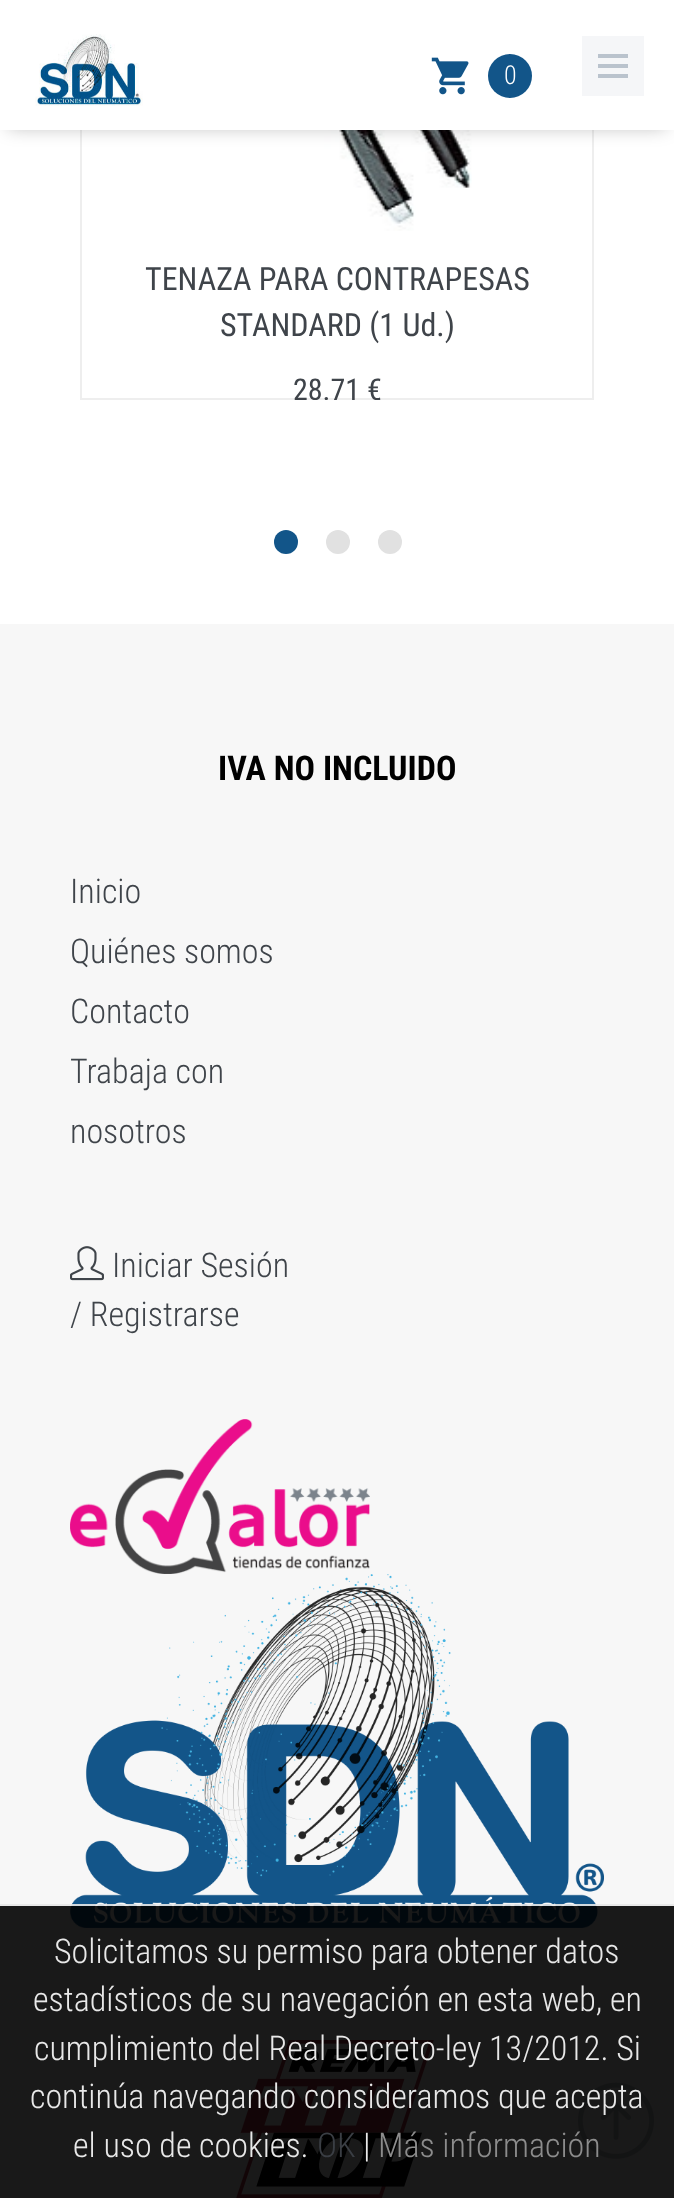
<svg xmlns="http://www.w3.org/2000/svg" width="674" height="2198">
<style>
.a{font:300 26px Roboto Condensed;fill:#fff}
.b{font:32px Roboto Condensed;fill:#3f444a}
.c{font:30px Roboto Condensed;fill:#3f444a}
.d{font:bold 34px Roboto Condensed;fill:#000}
.e{font:300 34px Roboto Condensed;fill:#3f444a}
.f{font:300 34px Roboto Condensed;fill:#e8e8e8}
.g{font:300 34px Roboto Condensed;fill:#3a3e44}
.h{font:300 34px Roboto Condensed;fill:#8c8c8c}
</style>
<defs>
<clipPath id="clip1"><path d="M20 0h634v400H20z"/></clipPath>
</defs>
<rect width="100%" height="100%" fill="#fff"/>
<path fill="none" stroke="#eee" stroke-width="2" d="M81 -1h512v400H81z"/>
<image href="3.png" x="286" y="130" width="186" height="101"/>
<path fill="#00000040" filter="blur(9px)" d="M8 14h658v114H8z"/>
<path fill="#fff" d="M0 0h674v130H0z"/>
<image href="1.png" x="35" y="34" width="108" height="72"/>
<image href="2.png" x="431" y="57" width="38" height="38"/>
<circle fill="#125589" cx="510" cy="76" r="22"/>
<path fill="#f5f6f8" d="M582 36h62v60H582z"/>
<path fill="#bac3cd" d="M598 54h30v4H598z"/>
<path fill="#bac3cd" d="M598 64h30v4H598z"/>
<path fill="#bac3cd" d="M598 74h30v4H598z"/>
<circle fill="#125589" cx="286" cy="542" r="12"/>
<circle fill="#e1e1e1" cx="338" cy="542" r="12"/>
<circle fill="#e1e1e1" cx="390" cy="542" r="12"/>
<path fill="#f7f7f7" d="M0 624h674v1574H0z"/>
<image href="4.png" x="70" y="1246" width="34" height="35"/>
<image href="5.png" x="70" y="1419" width="300" height="155"/>
<image href="6.png" x="70" y="1574" width="534" height="354"/>
<image href="7.png" x="236" y="2040" width="198" height="158"/>
<image href="8.png" x="578" y="2082" width="76" height="77"/>
<path fill="#000000e6" d="M0 1906h674v292H0z"/>
<path fill="#e7e7e7e6" d="M0 1904h674v2H0z"/>
<text class="a" x="504" y="84">0</text>
<text class="b" x="145" y="290">TENAZA PARA CONTRAPESAS</text>
<text class="b" x="220" y="336">STANDARD (1 Ud.)</text>
<g clip-path="url(#clip1)">
<text class="c" x="293" y="400">28.71 €</text>
</g>
<text class="d" x="218" y="780">IVA NO INCLUIDO</text>
<text class="e" x="70" y="903">Inicio</text>
<text class="e" x="70" y="963">Quiénes somos</text>
<text class="e" x="70" y="1023">Contacto</text>
<text class="e" x="70" y="1083">Trabaja con</text>
<text class="e" x="70" y="1143">nosotros</text>
<text class="e" x="112" y="1277">Iniciar Sesión</text>
<text class="e" x="70" y="1326">/ Registrarse</text>
<text class="f" x="54" y="1963">Solicitamos su permiso para obtener datos</text>
<text class="f" x="33" y="2011">estadísticos de su navegación en esta web, en</text>
<text class="f" x="34" y="2060">cumplimiento del Real Decreto-ley 13/2012. Si</text>
<text class="f" x="30" y="2108">continúa navegando consideramos que acepta</text>
<text class="f" x="73" y="2157">el uso de cookies.</text>
<text class="g" x="317" y="2157">OK</text>
<text class="f" x="363" y="2157">|</text>
<text class="h" x="378" y="2157">Más información</text>
</svg>
